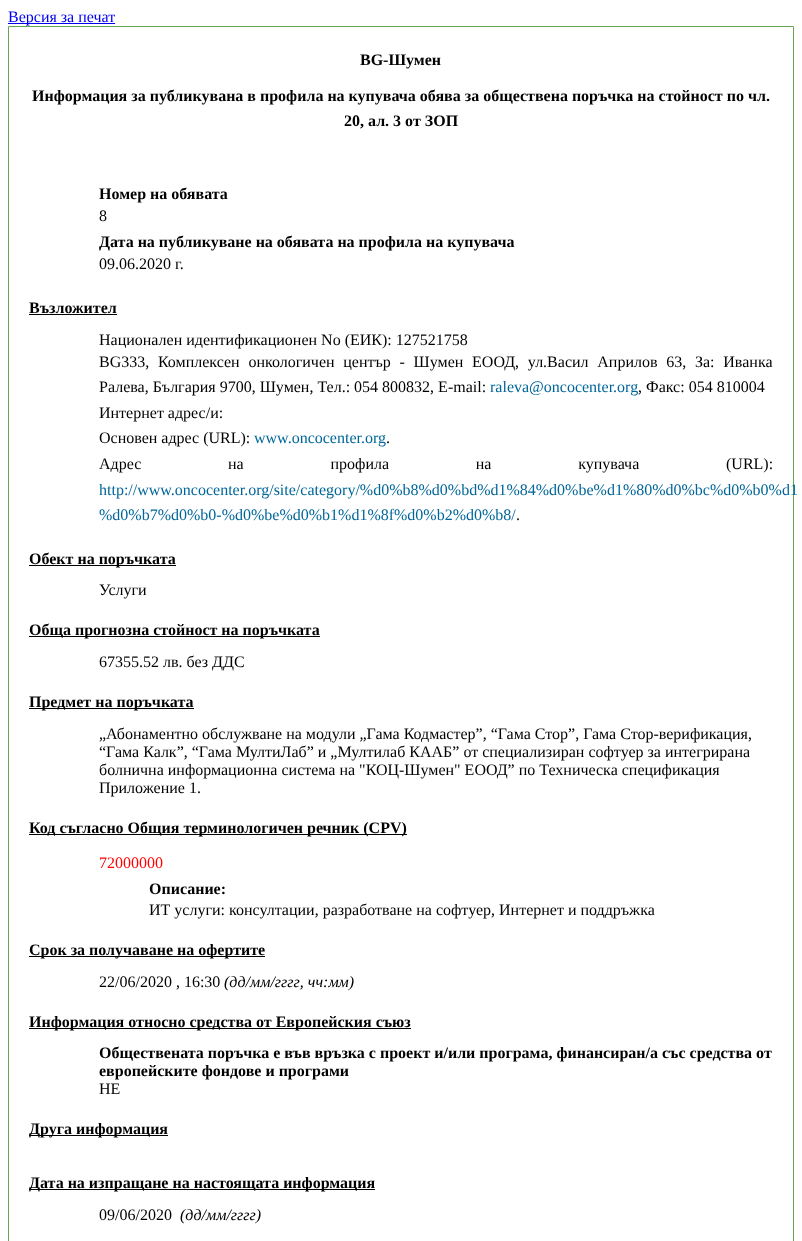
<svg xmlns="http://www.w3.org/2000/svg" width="802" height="1241">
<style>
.a{font:16px Liberation Serif;fill:#00e}
.b{font:bold 16px Liberation Serif;fill:#000}
.c{font:16px Liberation Serif;fill:#000}
.d{font:16px Liberation Serif;fill:#069}
.e{font:16px Liberation Serif;fill:#f00}
.f{font:italic 16px Liberation Serif;fill:#000}
</style>
<rect width="100%" height="100%" fill="#fff"/>
<path fill="#00e" d="M8 23h107v1H8z"/>
<path fill="none" stroke="#67a64f" d="M8.5 26.5h785v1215H8.5z"/>
<path fill="#000" d="M29 314h88v1H29z"/>
<path fill="#000" d="M29 565h147v1H29z"/>
<path fill="#000" d="M29 636h291v1H29z"/>
<path fill="#000" d="M29 708h165v1H29z"/>
<path fill="#000" d="M29 834h378v1H29z"/>
<path fill="#000" d="M29 956h236v1H29z"/>
<path fill="#000" d="M29 1028h382v1H29z"/>
<path fill="#000" d="M29 1135h139v1H29z"/>
<path fill="#000" d="M29 1189h346v1H29z"/>
<text class="a" x="8" y="22">Версия за печат</text>
<text class="b" x="360" y="65">BG-Шумен</text>
<text class="b" x="32" y="101">Информация за публикувана в профила на купувача обява за обществена поръчка на стойност по чл.</text>
<text class="b" x="344" y="126">20, ал. 3 от ЗОП</text>
<text class="b" x="99" y="199">Номер на обявата</text>
<text class="c" x="99" y="221">8</text>
<text class="b" x="99" y="247">Дата на публикуване на обявата на профила на купувача</text>
<text class="c" x="99" y="269">09.06.2020 г.</text>
<text class="b" x="29" y="313">Възложител</text>
<text class="c" x="99" y="345">Национален идентификационен No (ЕИК): 127521758</text>
<text class="c" x="99" y="367" word-spacing="4.75">BG333, Комплексен онкологичен център - Шумен ЕООД, ул.Васил Априлов 63, За: Иванка</text>
<text class="c" x="99" y="392">Ралева, България 9700, Шумен, Тел.: 054 800832, E-mail:</text>
<text class="d" x="490" y="392">raleva@oncocenter.org</text>
<text class="c" x="638" y="392">, Факс: 054 810004</text>
<text class="c" x="99" y="418">Интернет адрес/и:</text>
<text class="c" x="99" y="443">Основен адрес (URL):</text>
<text class="d" x="254" y="443">www.oncocenter.org</text>
<text class="c" x="386" y="443">.</text>
<text class="c" x="99" y="469" word-spacing="82.75">Адрес на профила на купувача (URL):</text>
<text class="d" x="99" y="495">http://www.oncocenter.org/site/category/%d0%b8%d0%bd%d1%84%d0%be%d1%80%d0%bc%d0%b0%d1</text>
<text class="d" x="99" y="520">%d0%b7%d0%b0-%d0%be%d0%b1%d1%8f%d0%b2%d0%b8/</text>
<text class="c" x="516" y="520">.</text>
<text class="b" x="29" y="564">Обект на поръчката</text>
<text class="c" x="99" y="595">Услуги</text>
<text class="b" x="29" y="635">Обща прогнозна стойност на поръчката</text>
<text class="c" x="99" y="667">67355.52 лв. без ДДС</text>
<text class="b" x="29" y="707">Предмет на поръчката</text>
<text class="c" x="99" y="739">„Абонаментно обслужване на модули „Гама Кодмастер”, “Гама Стор”, Гама Стор-верификация,</text>
<text class="c" x="99" y="757">“Гама Калк”, “Гама МултиЛаб” и „Мултилаб КААБ” от специализиран софтуер за интегрирана</text>
<text class="c" x="99" y="775">болнична информационна система на "КОЦ-Шумен" ЕООД” по Техническа спецификация</text>
<text class="c" x="99" y="793">Приложение 1.</text>
<text class="b" x="29" y="833">Код съгласно Общия терминологичен речник (CPV)</text>
<text class="e" x="99" y="868">72000000</text>
<text class="b" x="149" y="894">Описание:</text>
<text class="c" x="149" y="915">ИТ услуги: консултации, разработване на софтуер, Интернет и поддръжка</text>
<text class="b" x="29" y="955">Срок за получаване на офертите</text>
<text class="c" x="99" y="987">22/06/2020 , 16:30</text>
<text class="f" x="224" y="987">(дд/мм/гггг, чч:мм)</text>
<text class="b" x="29" y="1027">Информация относно средства от Европейския съюз</text>
<text class="b" x="99" y="1058">Обществената поръчка е във връзка с проект и/или програма, финансиран/а със средства от</text>
<text class="b" x="99" y="1076">европейските фондове и програми</text>
<text class="c" x="99" y="1094">НЕ</text>
<text class="b" x="29" y="1134">Друга информация</text>
<text class="b" x="29" y="1188">Дата на изпращане на настоящата информация</text>
<text class="c" x="99" y="1220">09/06/2020</text>
<text class="f" x="180" y="1220">(дд/мм/гггг)</text>
</svg>
